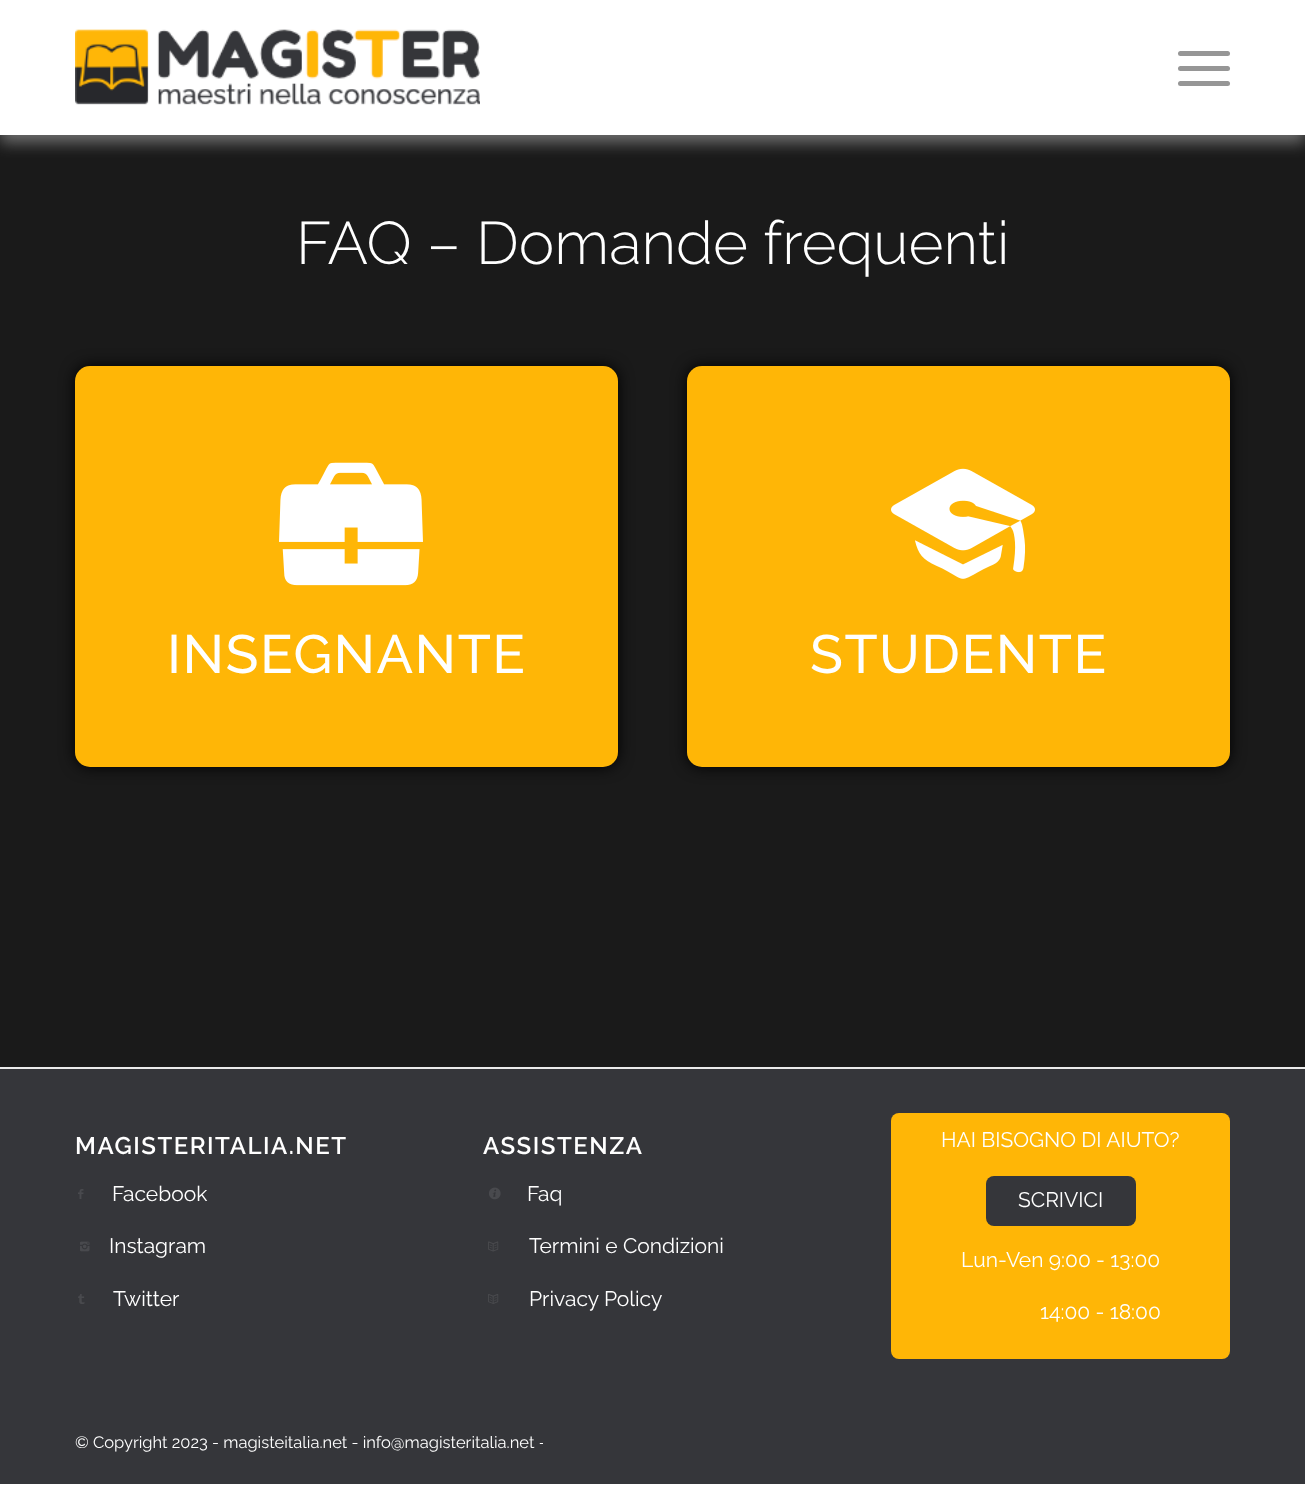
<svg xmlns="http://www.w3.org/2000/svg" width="1305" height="1504">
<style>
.a{font:300 60px Raleway;fill:#fff}
.b{font:500 54px Raleway;letter-spacing:1.5px;fill:#fff}
.c{font:600 24px Raleway;letter-spacing:1.5px;fill:#fff}
.d{font:21px Raleway;fill:#fff}
.e{font:16.5px Raleway;fill:#fff}
</style>
<defs>
<clipPath id="clip1"><path d="M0 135h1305v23H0z"/></clipPath>
</defs>
<rect width="100%" height="100%" fill="#fff"/>
<path fill="#1a1a1a" d="M0 135h1305v932H0z"/>
<g clip-path="url(#clip1)">
<path fill="#6d6d6d" filter="blur(7.5px)" d="M0 8h1305v135H0z"/>
</g>
<image href="1.png" x="75" y="29" width="405" height="76"/>
<rect fill="#969696" x="1178" y="66" width="52" height="5" rx="2.5"/>
<rect fill="#969696" x="1178" y="51" width="52" height="5" rx="2.5"/>
<rect fill="#969696" x="1178" y="81" width="52" height="5" rx="2.5"/>
<rect fill="#000" filter="blur(7.5px)" x="75" y="366" width="543" height="401" rx="15"/>
<rect fill="#ffb606" x="75" y="366" width="543" height="401" rx="15"/>
<image href="2.png" x="279" y="462" width="144" height="124"/>
<rect fill="#000" filter="blur(7.5px)" x="687" y="366" width="543" height="401" rx="15"/>
<rect fill="#ffb606" x="687" y="366" width="543" height="401" rx="15"/>
<image href="3.png" x="891" y="468" width="144" height="111"/>
<path fill="#35363a" d="M0 1069h1305v415H0z"/>
<path fill="#ebebeb" d="M0 1067h1305v2H0z"/>
<image href="4.png" x="78" y="1189" width="6" height="10"/>
<image href="5.png" x="80" y="1241" width="10" height="11"/>
<image href="6.png" x="78" y="1294" width="7" height="10"/>
<image href="7.png" x="489" y="1187" width="12" height="13"/>
<image href="8.png" x="488" y="1241" width="11" height="11"/>
<image href="9.png" x="488" y="1294" width="11" height="10"/>
<rect fill="#ffb606" x="891" y="1113" width="339" height="246" rx="8"/>
<rect fill="#35363a" x="986" y="1176" width="150" height="50" rx="8"/>
<text class="a" x="296" y="264">FAQ – Domande frequenti</text>
<text class="b" x="167" y="673">INSEGNANTE</text>
<text class="b" x="810" y="673">STUDENTE</text>
<text class="c" x="75" y="1154">MAGISTERITALIA.NET</text>
<text class="d" x="112" y="1201">Facebook</text>
<text class="d" x="109" y="1253">Instagram</text>
<text class="d" x="113" y="1306">Twitter</text>
<text class="c" x="483" y="1154">ASSISTENZA</text>
<text class="d" x="527" y="1201">Faq</text>
<text class="d" x="529" y="1253">Termini e Condizioni</text>
<text class="d" x="529" y="1306">Privacy Policy</text>
<text class="d" x="941" y="1147">HAI BISOGNO DI AIUTO?</text>
<text class="d" x="1018" y="1207">SCRIVICI</text>
<text class="d" x="961" y="1267">Lun-Ven 9:00 - 13:00</text>
<text class="d" x="1040" y="1319">14:00 - 18:00</text>
<text class="e" x="75" y="1448">© Copyright 2023 - magisteitalia.net - info@magisteritalia.net -</text>
<path fill="#35363a" d="M543 1443h2v1H543z"/>
</svg>
